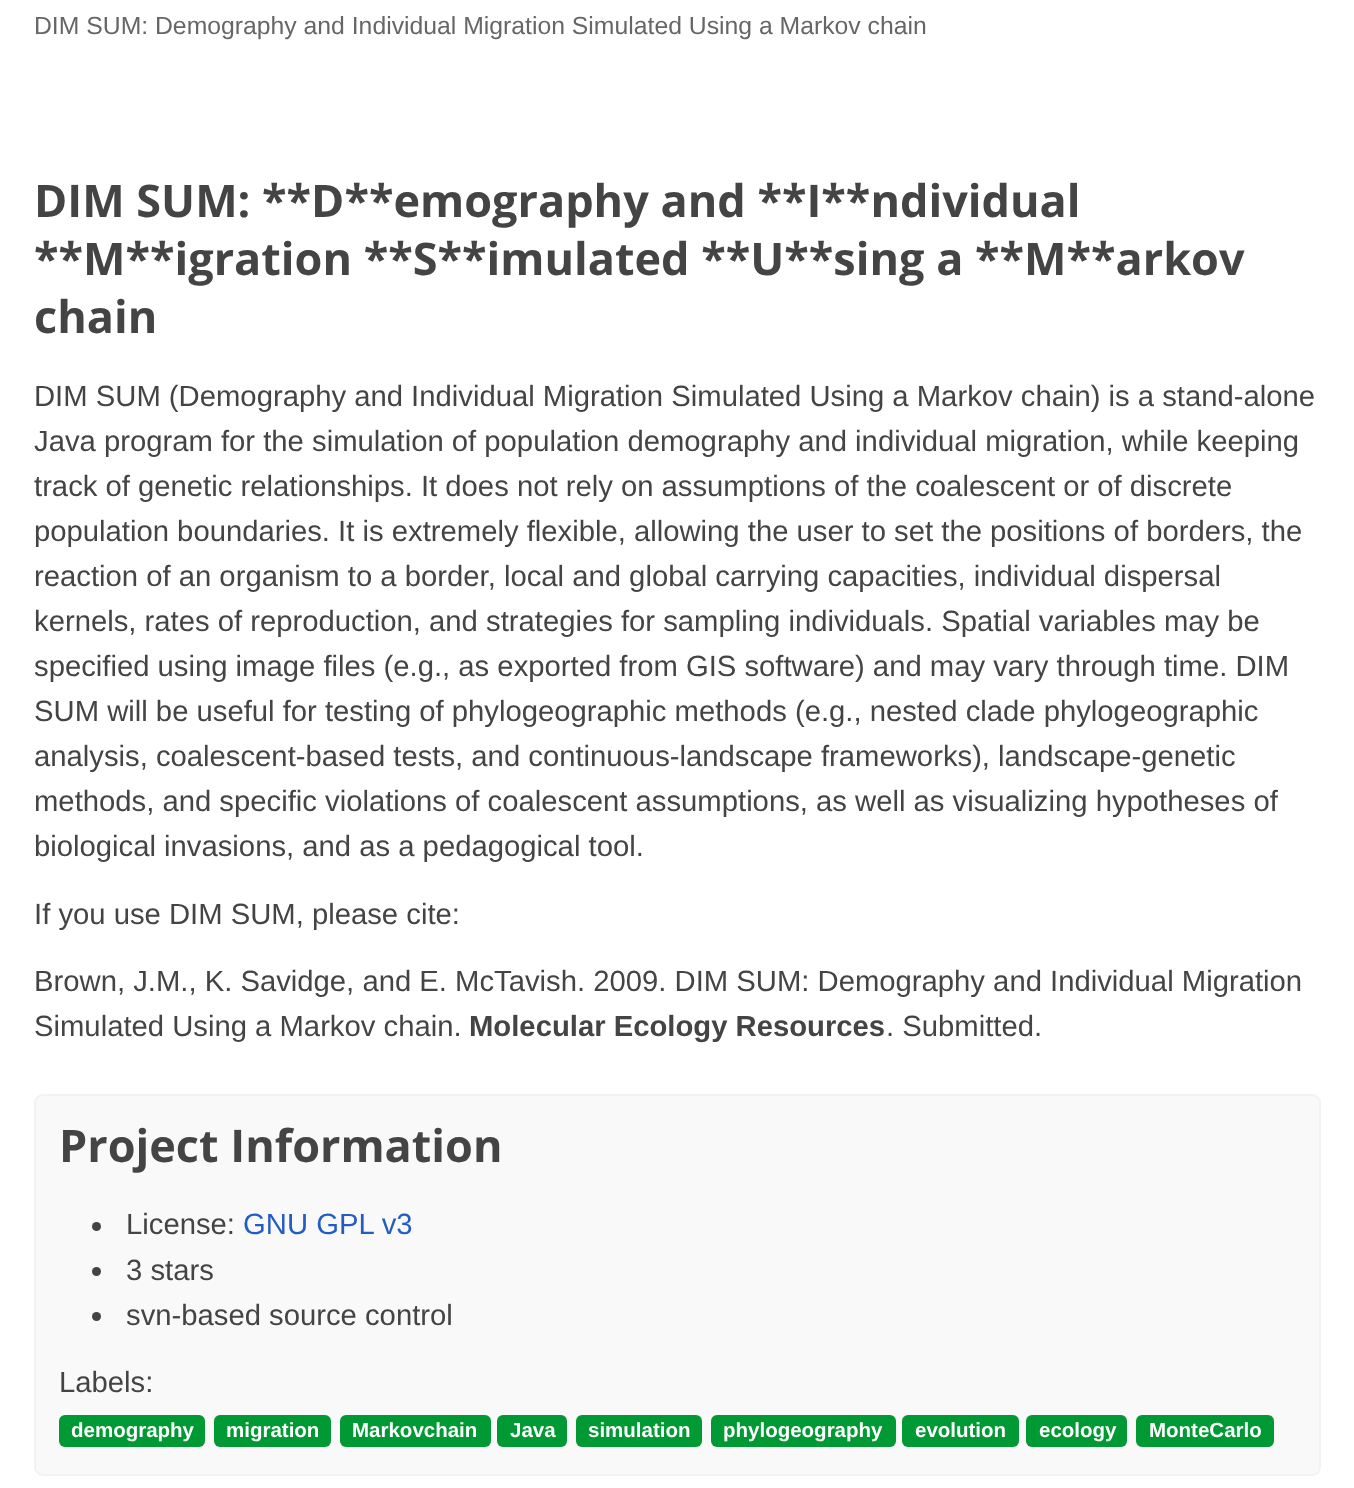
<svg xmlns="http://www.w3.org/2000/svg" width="1354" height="1488">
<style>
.a{font:24.75px Liberation Sans;fill:#666}
.b{font:bold 45px Open Sans;fill:#444}
.c{font:29.25px Liberation Sans;fill:#444}
.d{font:bold 29.25px Liberation Sans;fill:#444}
.e{font:29.25px Liberation Sans;fill:#245dc1}
.f{font:bold 20.5px Liberation Sans;fill:#fff}
</style>
<rect width="100%" height="100%" fill="#fff"/>
<rect fill="#f9f9f9" stroke="#f2f2f2" stroke-width="2" x="35" y="1095" width="1285" height="380" rx="8"/>
<circle fill="#444" cx="96.5" cy="1226.5" r="4.5"/>
<circle fill="#444" cx="96.5" cy="1271.5" r="4.5"/>
<circle fill="#444" cx="96.5" cy="1316.5" r="4.5"/>
<rect fill="#093" x="59" y="1415" width="146" height="32" rx="6"/>
<rect fill="#093" x="214" y="1415" width="117" height="32" rx="6"/>
<rect fill="#093" x="340" y="1415" width="151" height="32" rx="6"/>
<rect fill="#093" x="497" y="1415" width="70" height="32" rx="6"/>
<rect fill="#093" x="576" y="1415" width="126" height="32" rx="6"/>
<rect fill="#093" x="711" y="1415" width="185" height="32" rx="6"/>
<rect fill="#093" x="902" y="1415" width="117" height="32" rx="6"/>
<rect fill="#093" x="1026" y="1415" width="101" height="32" rx="6"/>
<rect fill="#093" x="1136" y="1415" width="138" height="32" rx="6"/>
<text class="a" x="34" y="34">DIM SUM: Demography and Individual Migration Simulated Using a Markov chain</text>
<text class="b" x="34" y="217">DIM SUM: **D**emography and **I**ndividual</text>
<text class="b" x="34" y="275">**M**igration **S**imulated **U**sing a **M**arkov</text>
<text class="b" x="34" y="333">chain</text>
<text class="c" x="34" y="406">DIM SUM (Demography and Individual Migration Simulated Using a Markov chain) is a stand-alone</text>
<text class="c" x="34" y="451">Java program for the simulation of population demography and individual migration, while keeping</text>
<text class="c" x="34" y="496">track of genetic relationships. It does not rely on assumptions of the coalescent or of discrete</text>
<text class="c" x="34" y="541">population boundaries. It is extremely flexible, allowing the user to set the positions of borders, the</text>
<text class="c" x="34" y="586">reaction of an organism to a border, local and global carrying capacities, individual dispersal</text>
<text class="c" x="34" y="631">kernels, rates of reproduction, and strategies for sampling individuals. Spatial variables may be</text>
<text class="c" x="34" y="676">specified using image files (e.g., as exported from GIS software) and may vary through time. DIM</text>
<text class="c" x="34" y="721">SUM will be useful for testing of phylogeographic methods (e.g., nested clade phylogeographic</text>
<text class="c" x="34" y="766">analysis, coalescent-based tests, and continuous-landscape frameworks), landscape-genetic</text>
<text class="c" x="34" y="811">methods, and specific violations of coalescent assumptions, as well as visualizing hypotheses of</text>
<text class="c" x="34" y="856">biological invasions, and as a pedagogical tool.</text>
<text class="c" x="34" y="924">If you use DIM SUM, please cite:</text>
<text class="c" x="34" y="991">Brown, J.M., K. Savidge, and E. McTavish. 2009. DIM SUM: Demography and Individual Migration</text>
<text class="c" x="34" y="1036">Simulated Using a Markov chain.</text>
<text class="d" x="469" y="1036">Molecular Ecology Resources</text>
<text class="c" x="886" y="1036">. Submitted.</text>
<text class="b" x="59" y="1162">Project Information</text>
<text class="c" x="126" y="1234">License:</text>
<text class="e" x="243" y="1234">GNU GPL v3</text>
<text class="c" x="126" y="1280">3 stars</text>
<text class="c" x="126" y="1325">svn-based source control</text>
<text class="c" x="59" y="1392">Labels:</text>
<text class="f" x="71" y="1437">demography</text>
<text class="f" x="226" y="1437">migration</text>
<text class="f" x="352" y="1437">Markovchain</text>
<text class="f" x="510" y="1437">Java</text>
<text class="f" x="588" y="1437">simulation</text>
<text class="f" x="723" y="1437">phylogeography</text>
<text class="f" x="915" y="1437">evolution</text>
<text class="f" x="1039" y="1437">ecology</text>
<text class="f" x="1149" y="1437">MonteCarlo</text>
</svg>
